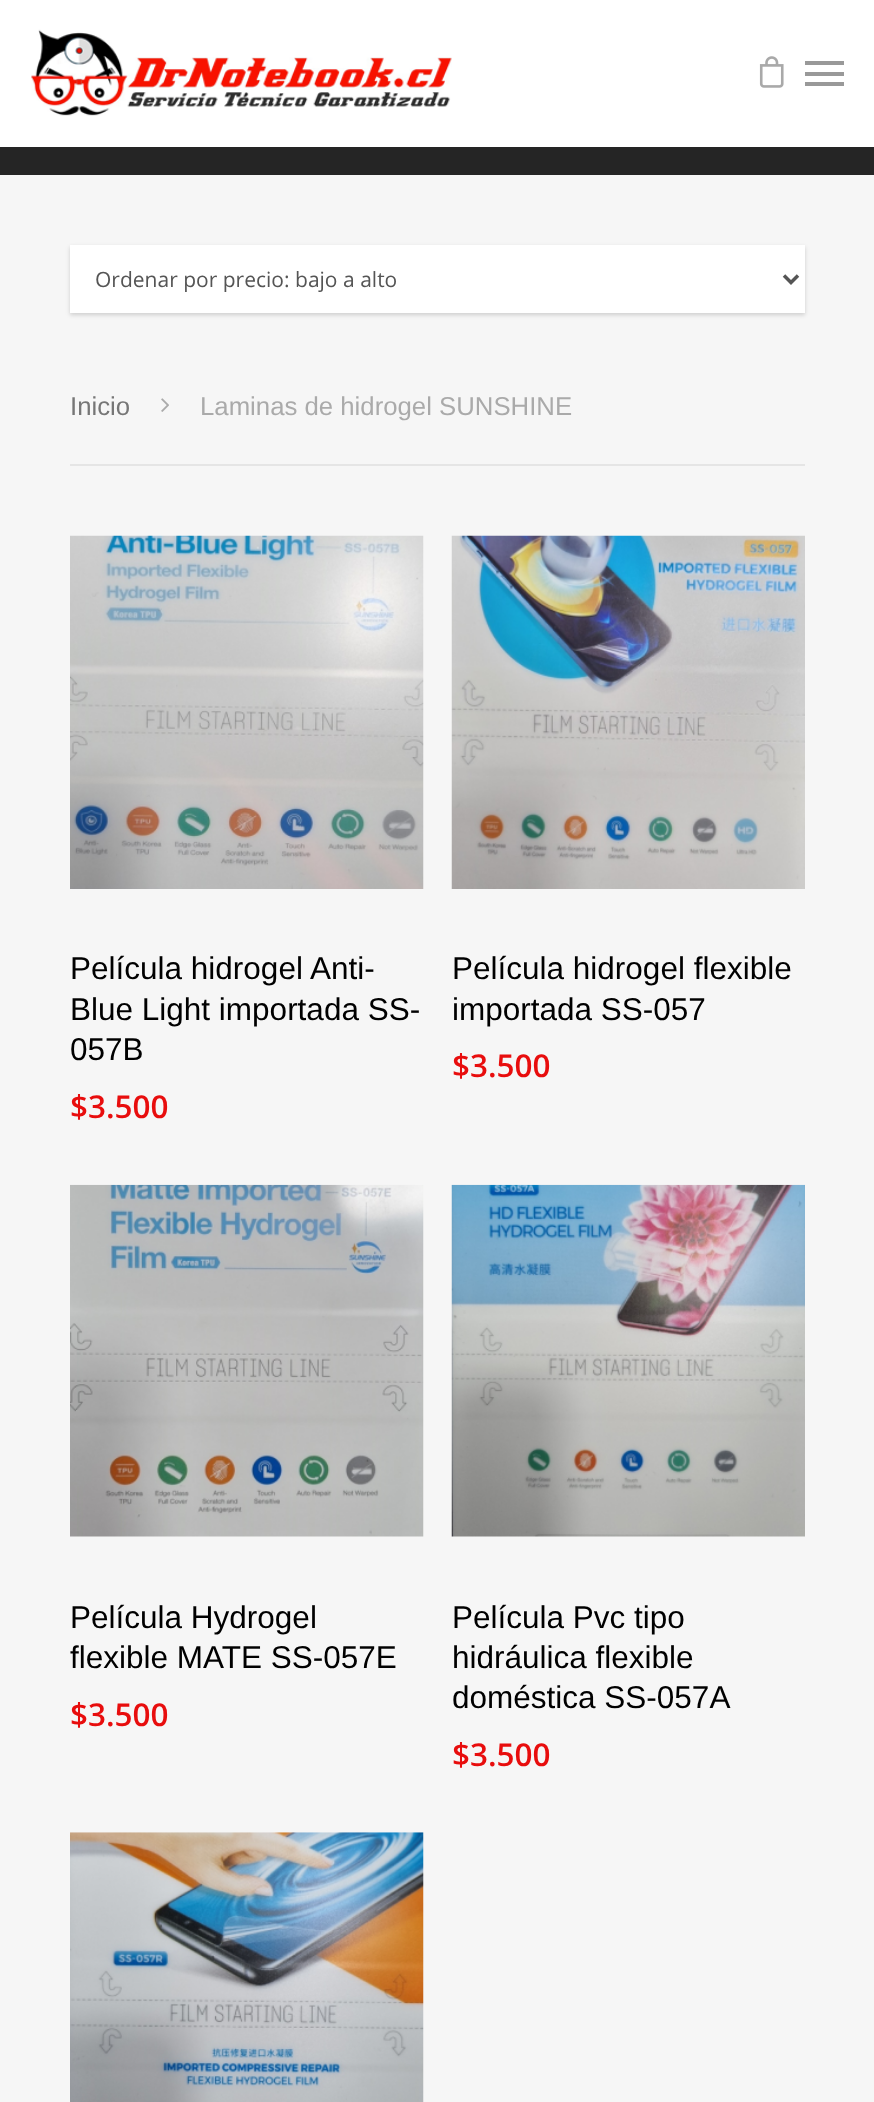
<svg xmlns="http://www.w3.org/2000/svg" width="874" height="2102">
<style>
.a{font:21px Open Sans;fill:#555}
.b{font:25.75px Liberation Sans;fill:#767676}
.c{font:25.75px Liberation Sans;fill:#aaa}
.d{font:31.5px Liberation Sans;fill:#000}
.e{font:600 31.5px Open Sans;fill:#e80d0d}
</style>
<rect width="100%" height="100%" fill="#252525"/>
<path fill="#fff" d="M0 0h874v147H0z"/>
<image href="1.png" x="31" y="29" width="421" height="87"/>
<image href="2.png" x="759" y="56" width="25" height="32"/>
<path fill="#999" d="M805 61h39v4H805z"/>
<path fill="#999" d="M805 82h39v4H805z"/>
<path fill="#999" d="M805 72h39v4H805z"/>
<path fill="#f6f6f6" d="M0 175h874v1927H0z"/>
<path fill="#00000029" filter="blur(2px)" d="M70 247h735v68H70z"/>
<path fill="#fff" d="M70 245h735v68H70z"/>
<path fill="none" stroke="#555" stroke-width="3.5" d="M784 275.5l7 7l7-7"/>
<path fill="#e5e5e5" d="M70 464h735v2H70z"/>
<image href="3.png" x="161" y="398" width="8" height="14"/>
<image href="4.png" x="70" y="535" width="354" height="354"/>
<image href="5.png" x="451" y="535" width="354" height="354"/>
<image href="6.png" x="70" y="1184" width="354" height="353"/>
<image href="7.png" x="451" y="1184" width="354" height="353"/>
<image href="8.png" x="70" y="1832" width="354" height="270"/>
<text class="a" x="95" y="287">Ordenar por precio: bajo a alto</text>
<text class="b" x="70" y="415">Inicio</text>
<text class="c" x="200" y="415">Laminas de hidrogel SUNSHINE</text>
<text class="d" x="70" y="979">Película hidrogel Anti-</text>
<text class="d" x="70" y="1020">Blue Light importada SS-</text>
<text class="d" x="70" y="1060">057B</text>
<text class="e" x="70" y="1118">$3.500</text>
<text class="d" x="452" y="979">Película hidrogel flexible</text>
<text class="d" x="452" y="1020">importada SS-057</text>
<text class="e" x="452" y="1077">$3.500</text>
<text class="d" x="70" y="1628">Película Hydrogel</text>
<text class="d" x="70" y="1668">flexible MATE SS-057E</text>
<text class="e" x="70" y="1726">$3.500</text>
<text class="d" x="452" y="1628">Película Pvc tipo</text>
<text class="d" x="452" y="1668">hidráulica flexible</text>
<text class="d" x="452" y="1708">doméstica SS-057A</text>
<text class="e" x="452" y="1766">$3.500</text>
</svg>
